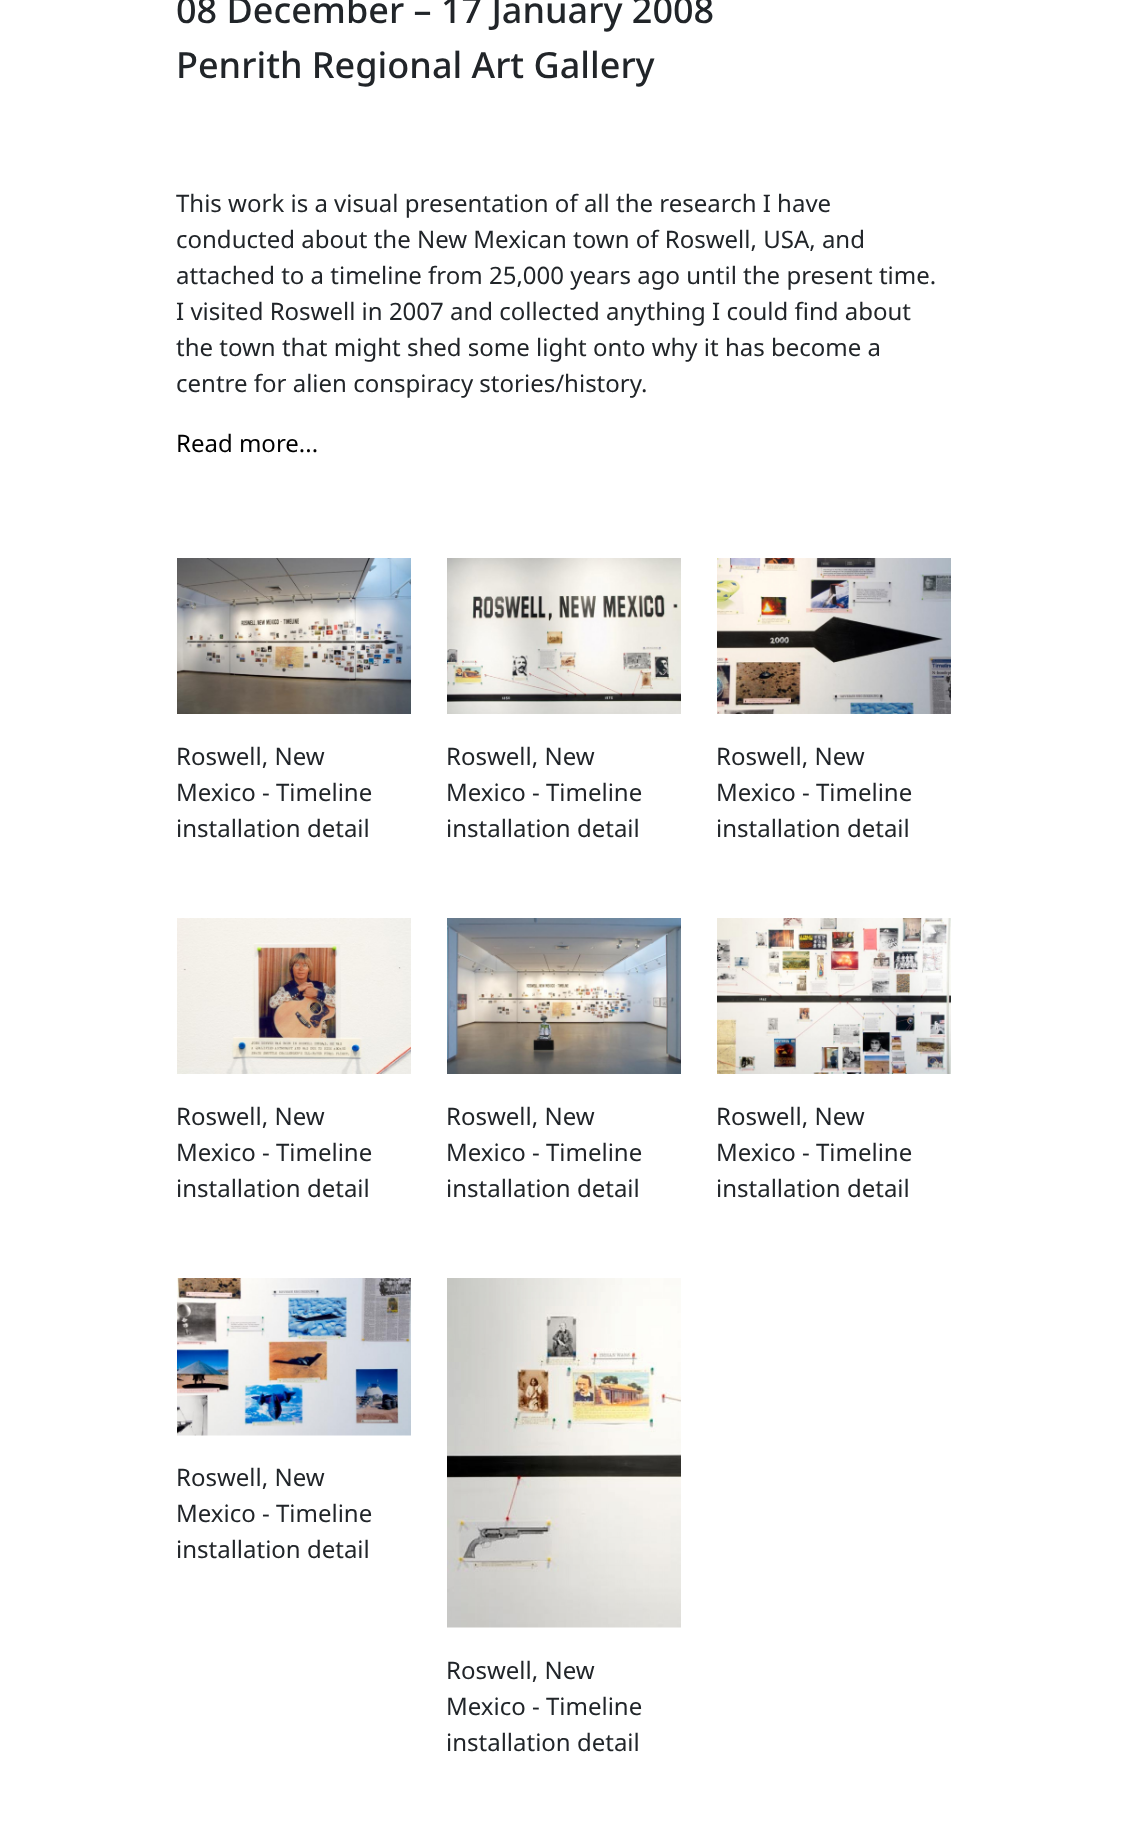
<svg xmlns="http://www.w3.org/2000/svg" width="1126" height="1825">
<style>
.a{font:500 36px Noto Sans;fill:#212529}
.b{font:24px Noto Sans;fill:#212529}
.c{font:24px Noto Sans;fill:#000}
</style>
<rect width="100%" height="100%" fill="#fff"/>
<image href="1.png" x="177" y="558" width="234" height="156"/>
<image href="2.png" x="447" y="558" width="234" height="156"/>
<image href="3.png" x="717" y="558" width="234" height="156"/>
<image href="4.png" x="177" y="918" width="234" height="156"/>
<image href="5.png" x="447" y="918" width="234" height="156"/>
<image href="6.png" x="717" y="918" width="234" height="156"/>
<image href="7.png" x="177" y="1278" width="234" height="158"/>
<image href="8.png" x="447" y="1278" width="234" height="350"/>
<text class="a" x="176" y="23">08 December – 17 January 2008</text>
<text class="a" x="176" y="78">Penrith Regional Art Gallery</text>
<text class="b" x="176" y="212">This work is a visual presentation of all the research I have</text>
<text class="b" x="176" y="248">conducted about the New Mexican town of Roswell, USA, and</text>
<text class="b" x="176" y="284">attached to a timeline from 25,000 years ago until the present time.</text>
<text class="b" x="176" y="320">I visited Roswell in 2007 and collected anything I could find about</text>
<text class="b" x="176" y="356">the town that might shed some light onto why it has become a</text>
<text class="b" x="176" y="392">centre for alien conspiracy stories/history.</text>
<text class="c" x="176" y="452">Read more...</text>
<text class="b" x="176" y="765">Roswell, New</text>
<text class="b" x="176" y="801">Mexico - Timeline</text>
<text class="b" x="176" y="837">installation detail</text>
<text class="b" x="446" y="765">Roswell, New</text>
<text class="b" x="446" y="801">Mexico - Timeline</text>
<text class="b" x="446" y="837">installation detail</text>
<text class="b" x="716" y="765">Roswell, New</text>
<text class="b" x="716" y="801">Mexico - Timeline</text>
<text class="b" x="716" y="837">installation detail</text>
<text class="b" x="176" y="1125">Roswell, New</text>
<text class="b" x="176" y="1161">Mexico - Timeline</text>
<text class="b" x="176" y="1197">installation detail</text>
<text class="b" x="446" y="1125">Roswell, New</text>
<text class="b" x="446" y="1161">Mexico - Timeline</text>
<text class="b" x="446" y="1197">installation detail</text>
<text class="b" x="716" y="1125">Roswell, New</text>
<text class="b" x="716" y="1161">Mexico - Timeline</text>
<text class="b" x="716" y="1197">installation detail</text>
<text class="b" x="176" y="1486">Roswell, New</text>
<text class="b" x="176" y="1522">Mexico - Timeline</text>
<text class="b" x="176" y="1558">installation detail</text>
<text class="b" x="446" y="1679">Roswell, New</text>
<text class="b" x="446" y="1715">Mexico - Timeline</text>
<text class="b" x="446" y="1751">installation detail</text>
</svg>
